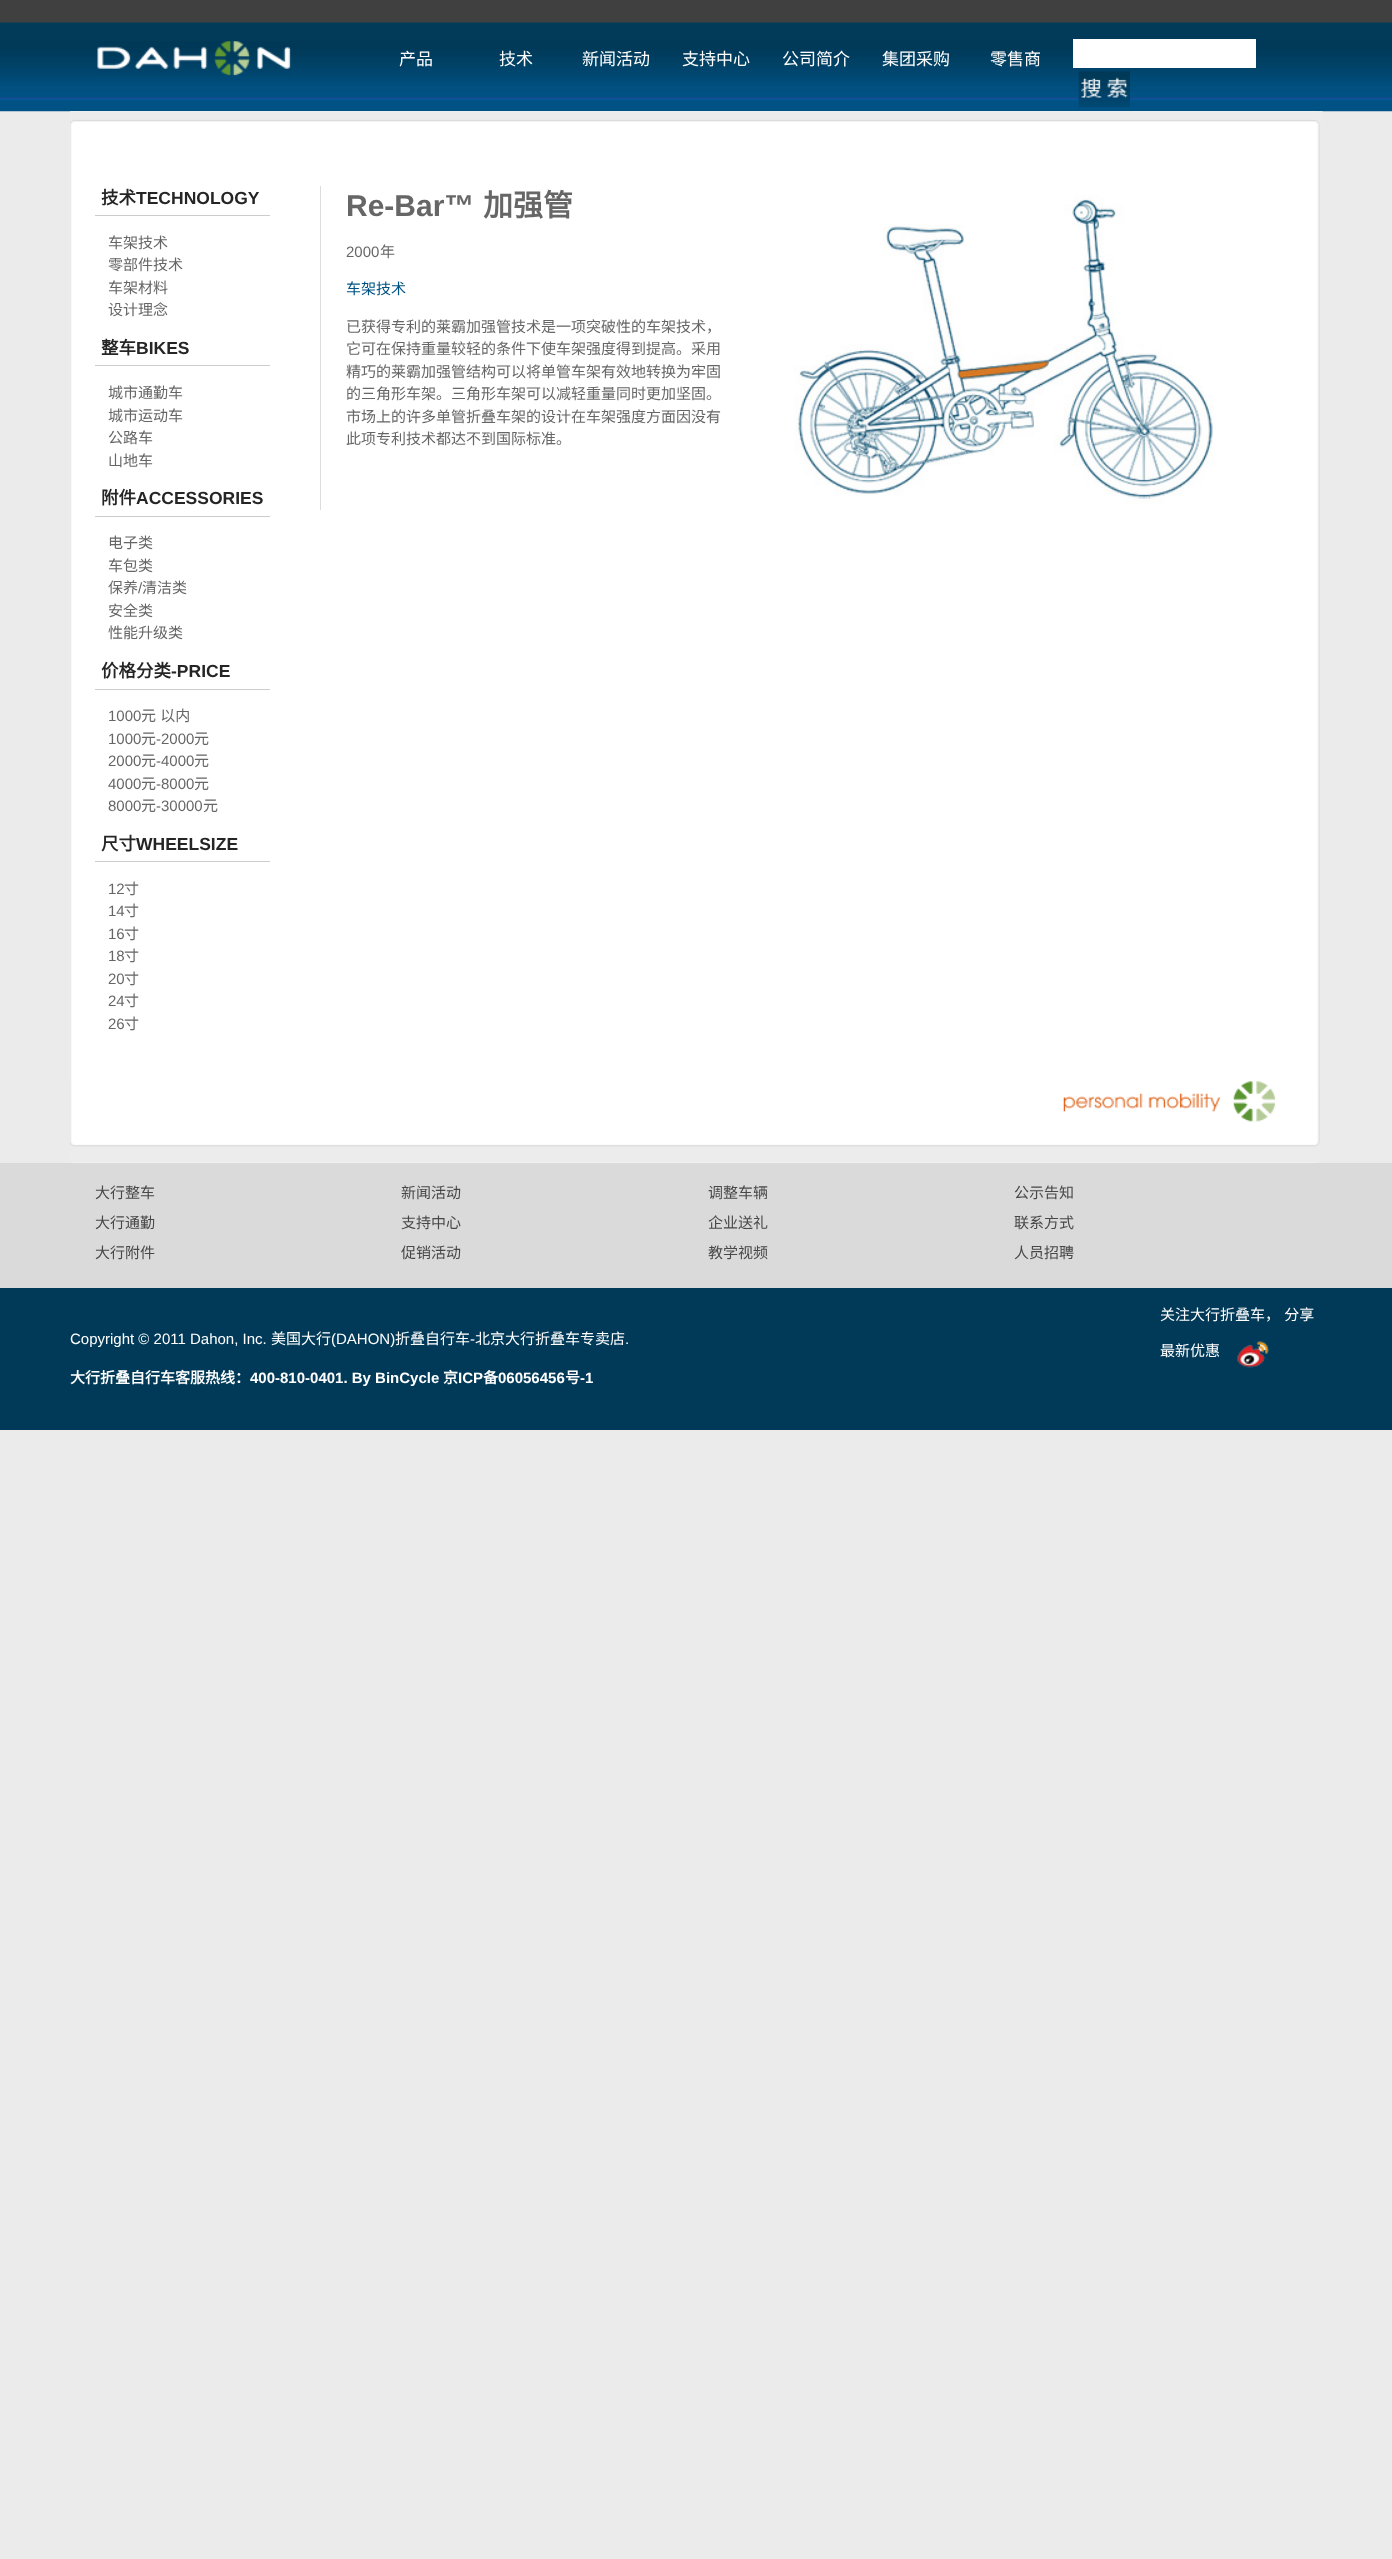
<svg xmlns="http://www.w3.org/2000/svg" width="1392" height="2559">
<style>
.a{font:17px Noto Sans CJK SC;fill:#fff}
.b{font:bold 17.5px Noto Sans CJK SC;fill:#252525}
.c{font:bold 17.5px Liberation Sans;fill:#252525}
.d{font:15px Noto Sans CJK SC;fill:#666}
.e{font:15px Liberation Sans;fill:#666}
.f{font:bold 30px Liberation Sans;fill:#666}
.g{font:bold 30px Noto Sans CJK SC;fill:#666}
.h{font:15px Noto Sans CJK SC;fill:#005284}
.i{font:15px Noto Sans CJK SC;fill:#484848}
.j{font:15px Liberation Sans;fill:#fff}
.k{font:15px Noto Sans CJK SC;fill:#fff}
.l{font:bold 15px Noto Sans CJK SC;fill:#fff}
.m{font:bold 15px Liberation Sans;fill:#fff}
</style>
<rect width="100%" height="100%" fill="#ebebeb"/>
<image href="1.png" x="0" y="0" width="1392" height="112"/>
<image href="2.png" x="97" y="41" width="194" height="35"/>
<path fill="#fff" d="M1073 39h183v29H1073z"/>
<image href="3.png" x="1078" y="71" width="52" height="37"/>
<image href="4.png" x="70" y="111" width="1253" height="1052"/>
<image href="5.png" x="70" y="1081" width="1250" height="82"/>
<image href="6.png" x="70" y="111" width="1253" height="13"/>
<path fill="#ccc" d="M95 215h175v1H95z"/>
<path fill="#ccc" d="M95 365h175v1H95z"/>
<path fill="#ccc" d="M95 516h175v1H95z"/>
<path fill="#ccc" d="M95 689h175v1H95z"/>
<path fill="#ccc" d="M95 861h175v1H95z"/>
<path fill="#ddd" d="M320 186h1v324H320z"/>
<image href="7.png" x="794" y="195" width="420" height="310"/>
<path fill="#dadada" d="M0 1163h1392v125H0z"/>
<path fill="#013a58" d="M0 1288h1392v142H0z"/>
<image href="8.png" x="1237" y="1341" width="32" height="27"/>
<text class="a" x="399" y="65">产品</text>
<text class="a" x="499" y="65">技术</text>
<text class="a" x="582" y="65">新闻活动</text>
<text class="a" x="682" y="65">支持中心</text>
<text class="a" x="782" y="65">公司简介</text>
<text class="a" x="882" y="65">集团采购</text>
<text class="a" x="990" y="65">零售商</text>
<text class="b" x="101" y="204">技术</text>
<text class="c" x="136" y="204">TECHNOLOGY</text>
<text class="d" x="108" y="248">车架技术</text>
<text class="d" x="108" y="270">零部件技术</text>
<text class="d" x="108" y="293">车架材料</text>
<text class="d" x="108" y="315">设计理念</text>
<text class="b" x="101" y="354">整车</text>
<text class="c" x="136" y="354">BIKES</text>
<text class="d" x="108" y="398">城市通勤车</text>
<text class="d" x="108" y="421">城市运动车</text>
<text class="d" x="108" y="443">公路车</text>
<text class="d" x="108" y="466">山地车</text>
<text class="b" x="101" y="504">附件</text>
<text class="c" x="136" y="504">ACCESSORIES</text>
<text class="d" x="108" y="548">电子类</text>
<text class="d" x="108" y="571">车包类</text>
<text class="d" x="108" y="593">保养</text>
<text class="e" x="138" y="593">/</text>
<text class="d" x="142" y="593">清洁类</text>
<text class="d" x="108" y="616">安全类</text>
<text class="d" x="108" y="638">性能升级类</text>
<text class="b" x="101" y="677">价格分类</text>
<text class="c" x="171" y="677">-PRICE</text>
<text class="e" x="108" y="721">1000</text>
<text class="d" x="141" y="721" word-spacing="1">元 以内</text>
<text class="e" x="108" y="744">1000</text>
<text class="d" x="141" y="744">元</text>
<text class="e" x="156" y="744">-2000</text>
<text class="d" x="194" y="744">元</text>
<text class="e" x="108" y="766">2000</text>
<text class="d" x="141" y="766">元</text>
<text class="e" x="156" y="766">-4000</text>
<text class="d" x="194" y="766">元</text>
<text class="e" x="108" y="789">4000</text>
<text class="d" x="141" y="789">元</text>
<text class="e" x="156" y="789">-8000</text>
<text class="d" x="194" y="789">元</text>
<text class="e" x="108" y="811">8000</text>
<text class="d" x="141" y="811">元</text>
<text class="e" x="156" y="811">-30000</text>
<text class="d" x="203" y="811">元</text>
<text class="b" x="101" y="850">尺寸</text>
<text class="c" x="136" y="850">WHEELSIZE</text>
<text class="e" x="108" y="894">12</text>
<text class="d" x="124" y="894">寸</text>
<text class="e" x="108" y="916">14</text>
<text class="d" x="124" y="916">寸</text>
<text class="e" x="108" y="939">16</text>
<text class="d" x="124" y="939">寸</text>
<text class="e" x="108" y="961">18</text>
<text class="d" x="124" y="961">寸</text>
<text class="e" x="108" y="984">20</text>
<text class="d" x="124" y="984">寸</text>
<text class="e" x="108" y="1006">24</text>
<text class="d" x="124" y="1006">寸</text>
<text class="e" x="108" y="1029">26</text>
<text class="d" x="124" y="1029">寸</text>
<text class="f" x="346" y="216">Re-Bar™</text>
<text class="g" x="483" y="216">加强管</text>
<text class="e" x="346" y="257">2000</text>
<text class="d" x="380" y="257">年</text>
<text class="h" x="346" y="294">车架技术</text>
<text class="d" x="346" y="332">已获得专利的莱霸加强管技术是一项突破性的车架技术，</text>
<text class="d" x="346" y="354">它可在保持重量较轻的条件下使车架强度得到提高。采用</text>
<text class="d" x="346" y="377">精巧的莱霸加强管结构可以将单管车架有效地转换为牢固</text>
<text class="d" x="346" y="399">的三角形车架。三角形车架可以减轻重量同时更加坚固。</text>
<text class="d" x="346" y="422">市场上的许多单管折叠车架的设计在车架强度方面因没有</text>
<text class="d" x="346" y="444">此项专利技术都达不到国际标准。</text>
<text class="i" x="95" y="1198">大行整车</text>
<text class="i" x="95" y="1228">大行通勤</text>
<text class="i" x="95" y="1258">大行附件</text>
<text class="i" x="401" y="1198">新闻活动</text>
<text class="i" x="401" y="1228">支持中心</text>
<text class="i" x="401" y="1258">促销活动</text>
<text class="i" x="708" y="1198">调整车辆</text>
<text class="i" x="708" y="1228">企业送礼</text>
<text class="i" x="708" y="1258">教学视频</text>
<text class="i" x="1014" y="1198">公示告知</text>
<text class="i" x="1014" y="1228">联系方式</text>
<text class="i" x="1014" y="1258">人员招聘</text>
<text class="j" x="70" y="1344">Copyright © 2011 Dahon, Inc.</text>
<text class="k" x="271" y="1344">美国大行</text>
<text class="j" x="331" y="1344">(DAHON)</text>
<text class="k" x="395" y="1344">折叠自行车</text>
<text class="j" x="470" y="1344">-</text>
<text class="k" x="475" y="1344">北京大行折叠车专卖店</text>
<text class="j" x="625" y="1344">.</text>
<text class="l" x="70" y="1383">大行折叠自行车客服热线：</text>
<text class="m" x="250" y="1383">400-810-0401. By BinCycle</text>
<text class="l" x="443" y="1383">京</text>
<text class="m" x="458" y="1383">ICP</text>
<text class="l" x="483" y="1383">备</text>
<text class="m" x="498" y="1383">06056456</text>
<text class="l" x="565" y="1383">号</text>
<text class="m" x="580" y="1383">-1</text>
<text class="k" x="1160" y="1320" word-spacing="1">关注大行折叠车， 分享</text>
<text class="k" x="1160" y="1356">最新优惠</text>
</svg>
